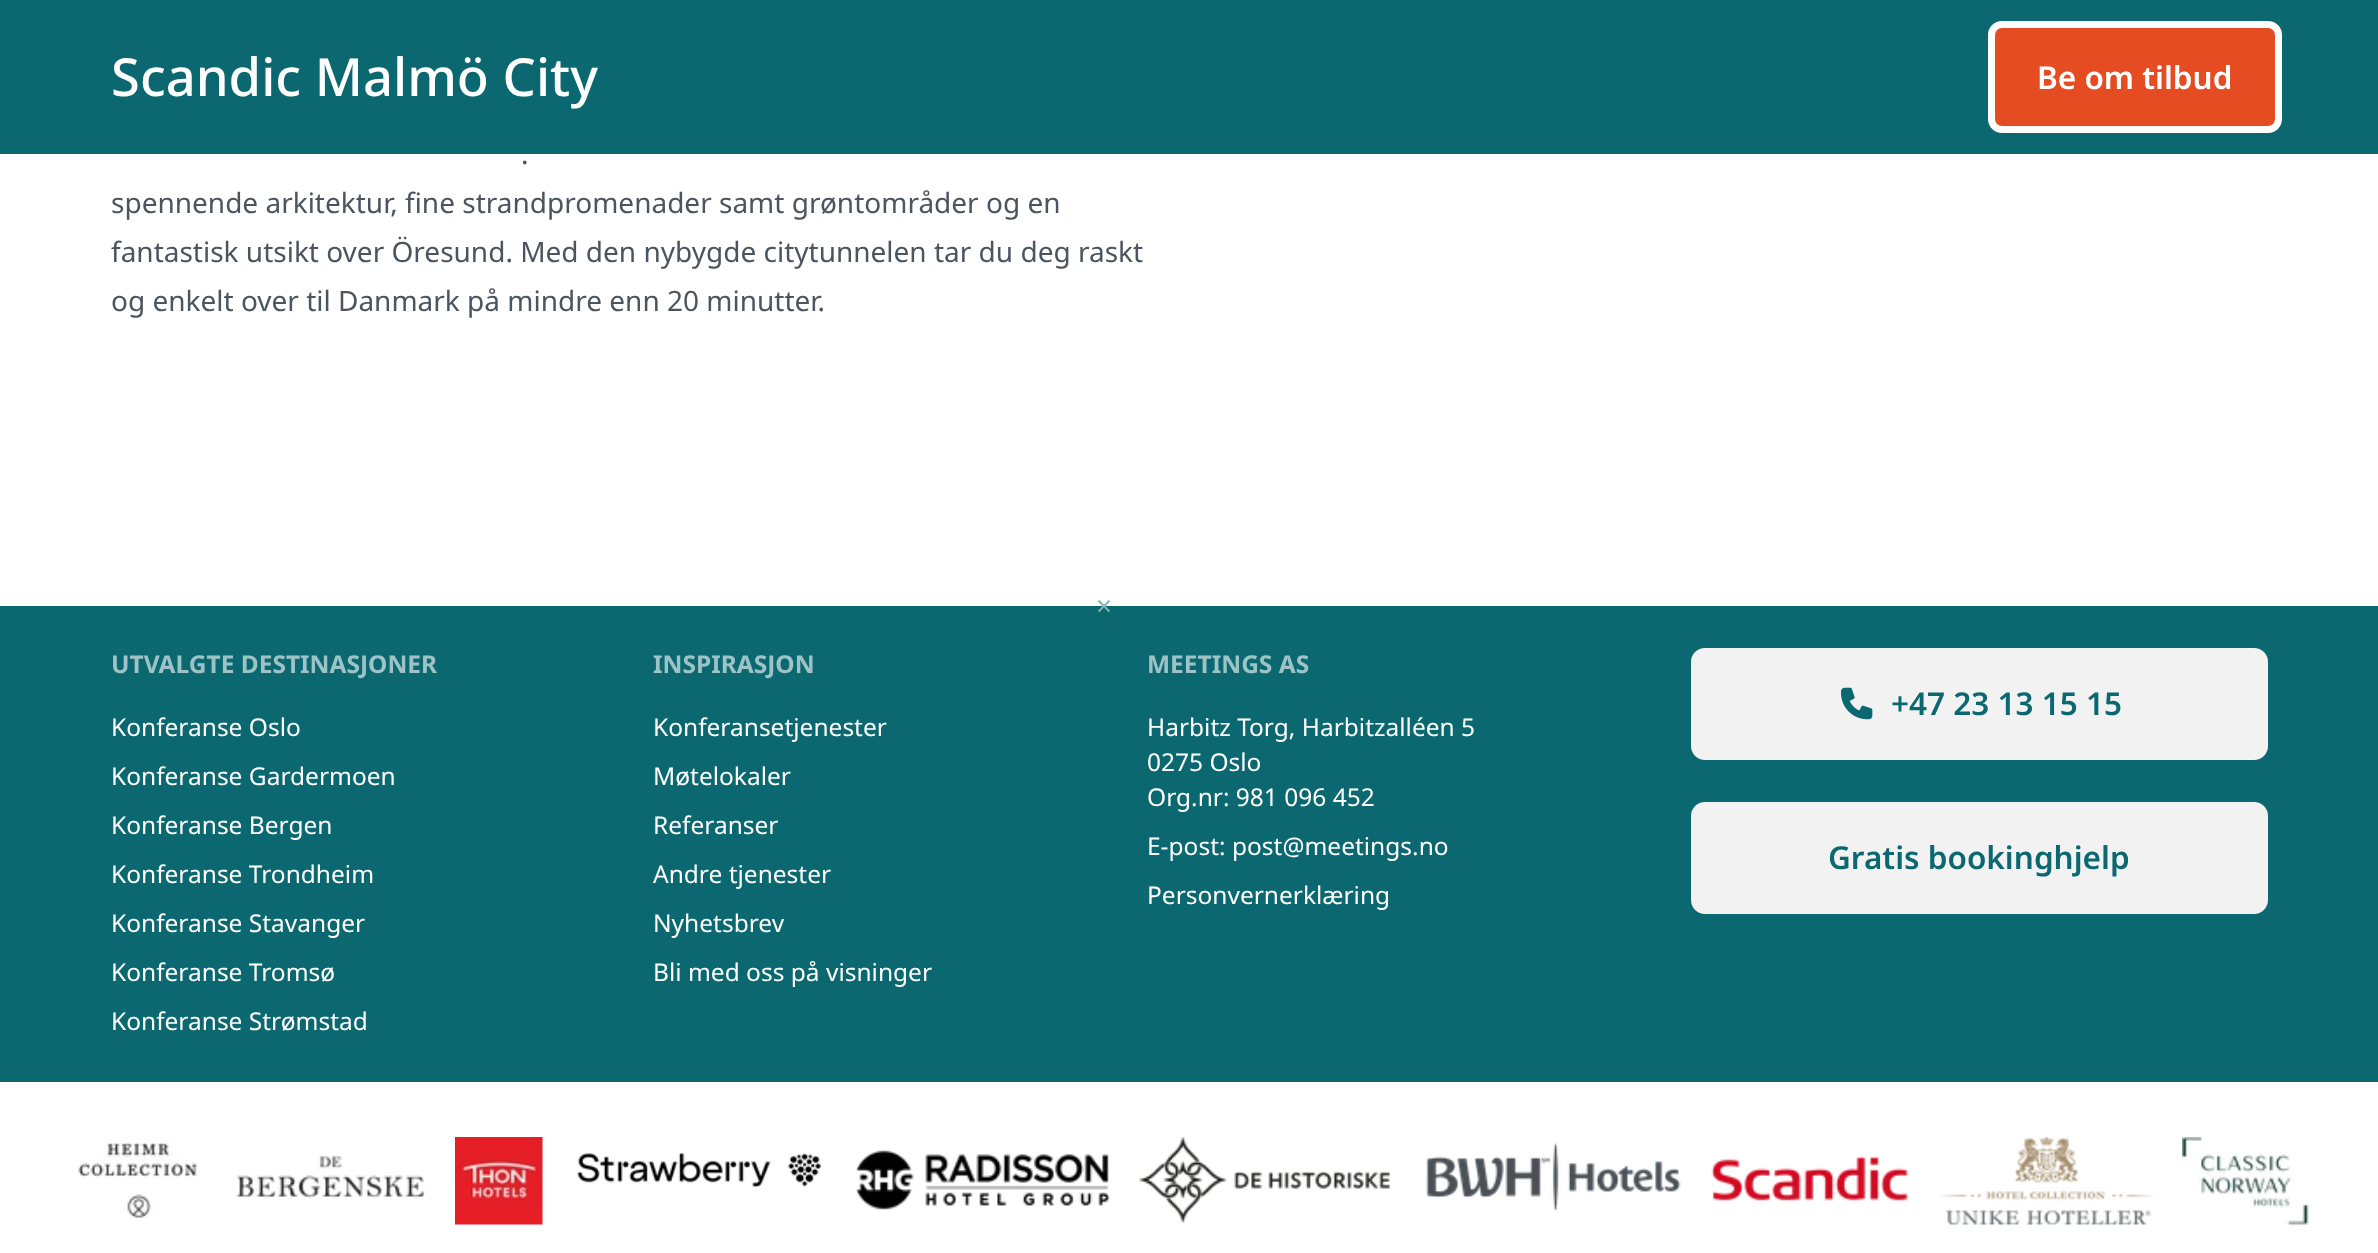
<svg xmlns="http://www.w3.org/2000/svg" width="2378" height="1253">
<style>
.a{font:500 52.5px Noto Sans;fill:#fff}
.b{font:600 31.5px Noto Sans;fill:#fff}
.c{font:28px Noto Sans;fill:#4c545f}
.d{font:28px Noto Sans;fill:#82b2b6}
.e{font:bold 24.5px Noto Sans;fill:#9dc3c6}
.f{font:24.5px Noto Sans;fill:#fff}
.g{font:600 31.5px Noto Sans;fill:#0b6870}
</style>
<rect width="100%" height="100%" fill="#fff"/>
<path fill="#0b6870" d="M0 0h2378v154H0z"/>
<rect fill="#e64c22" stroke="#fff" stroke-width="7" x="1991.5" y="24.5" width="287" height="105" rx="10.5"/>
<path fill="#0b6870" d="M0 606h2378v476H0z"/>
<rect fill="#f2f2f2" stroke="#f2f2f2" stroke-width="2" x="1692" y="649" width="575" height="110" rx="13"/>
<image href="1.png" x="1841" y="687" width="32" height="33"/>
<rect fill="#f2f2f2" stroke="#f2f2f2" stroke-width="2" x="1692" y="803" width="575" height="110" rx="13"/>
<image href="2.png" x="78" y="1137" width="120" height="82"/>
<image href="3.png" x="236" y="1155" width="190" height="44"/>
<image href="4.png" x="455" y="1137" width="88" height="88"/>
<image href="5.png" x="577" y="1153" width="245" height="35"/>
<image href="6.png" x="855" y="1150" width="255" height="60"/>
<image href="7.png" x="1139" y="1137" width="251" height="86"/>
<image href="8.png" x="1426" y="1143" width="255" height="69"/>
<image href="9.png" x="1711" y="1156" width="197" height="45"/>
<image href="10.png" x="1939" y="1137" width="215" height="88"/>
<image href="11.png" x="2182" y="1137" width="127" height="88"/>
<text class="a" x="111" y="96">Scandic Malmö City</text>
<text class="b" x="2037" y="89">Be om tilbud</text>
<text class="c" x="521" y="164">.</text>
<text class="c" x="111" y="213">spennende arkitektur, fine strandpromenader samt grøntområder og en</text>
<text class="c" x="111" y="262">fantastisk utsikt over Öresund. Med den nybygde citytunnelen tar du deg raskt</text>
<text class="c" x="111" y="311">og enkelt over til Danmark på mindre enn 20 minutter.</text>
<text class="d" x="1096" y="616">×</text>
<text class="e" x="111" y="673">UTVALGTE DESTINASJONER</text>
<text class="f" x="111" y="736">Konferanse Oslo</text>
<text class="f" x="111" y="785">Konferanse Gardermoen</text>
<text class="f" x="111" y="834">Konferanse Bergen</text>
<text class="f" x="111" y="883">Konferanse Trondheim</text>
<text class="f" x="111" y="932">Konferanse Stavanger</text>
<text class="f" x="111" y="981">Konferanse Tromsø</text>
<text class="f" x="111" y="1030">Konferanse Strømstad</text>
<text class="e" x="653" y="673">INSPIRASJON</text>
<text class="f" x="653" y="736">Konferansetjenester</text>
<text class="f" x="653" y="785">Møtelokaler</text>
<text class="f" x="653" y="834">Referanser</text>
<text class="f" x="653" y="883">Andre tjenester</text>
<text class="f" x="653" y="932">Nyhetsbrev</text>
<text class="f" x="653" y="981">Bli med oss på visninger</text>
<text class="e" x="1147" y="673">MEETINGS AS</text>
<text class="f" x="1147" y="736">Harbitz Torg, Harbitzalléen 5</text>
<text class="f" x="1147" y="771">0275 Oslo</text>
<text class="f" x="1147" y="806">Org.nr: 981 096 452</text>
<text class="f" x="1147" y="855">E-post: post@meetings.no</text>
<text class="f" x="1147" y="904">Personvernerklæring</text>
<text class="g" x="1891" y="715">+47 23 13 15 15</text>
<text class="g" x="1828" y="869">Gratis bookinghjelp</text>
</svg>
